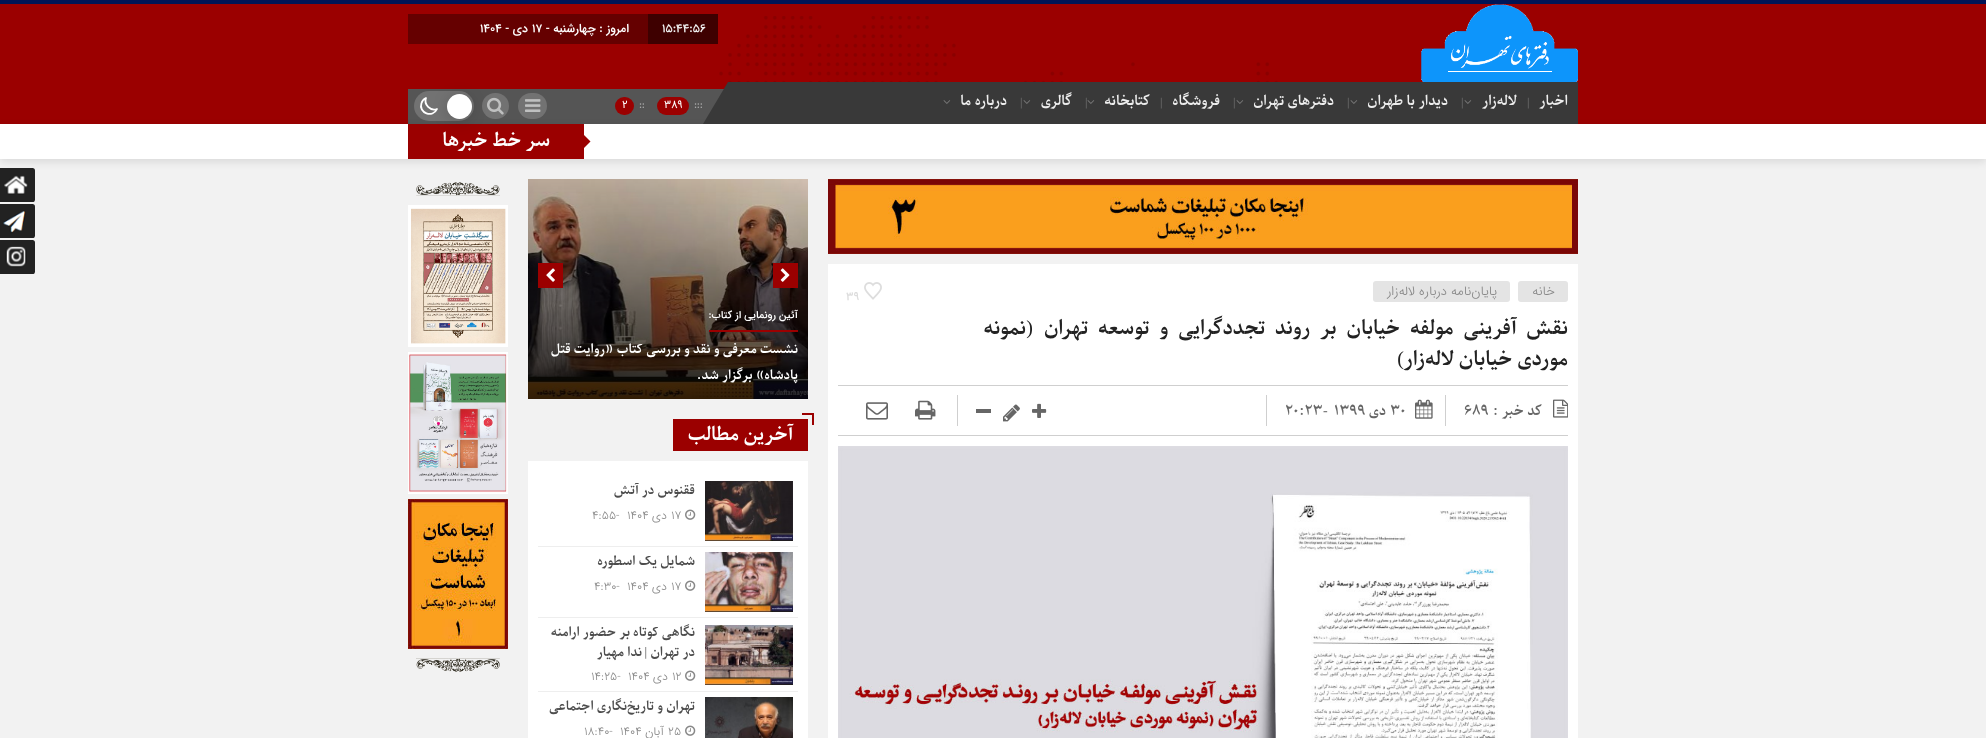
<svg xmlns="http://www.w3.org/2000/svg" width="1986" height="738">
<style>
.a{font:500 12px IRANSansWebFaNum;fill:#eee}
.b{font:500 12px IRANSansWebFaNum;direction:rtl;fill:#fff}
.c{font:500 12px IRANSansWebFaNum;fill:#fff}
.d{font:bold 14px Parastoo;direction:rtl;fill:#eee}
.e{font:12px Liberation Serif;fill:#777}
.f{font:bold 11px IRANSansWebFaNum;fill:#ababab}
.g{font:bold 11px IRANSansWebFaNum;fill:#fff}
.h{font:bold 19px Parastoo;direction:rtl;fill:#fff}
.i{font:300 13px IRANSansWebFaNum;direction:rtl;fill:#888}
.j{font:500 12px IRANSansWebFaNum;fill:#ddd}
.k{font:bold 20px Parastoo;direction:rtl;fill:#222}
.l{font:20px Liberation Serif;direction:rtl;fill:#222}
.m{font:bold 14px Parastoo;direction:rtl;fill:#666}
.n{font:bold 14px Parastoo;fill:#666}
.o{font:14px Liberation Serif;fill:#666}
.p{font:500 10.5px IRANSansWebFaNum;direction:rtl;fill:#fff}
.q{font:bold 13px Parastoo;direction:rtl;fill:#fff}
.r{font:bold 13px Parastoo;direction:rtl;fill:#4d4d4d}
.s{font:300 12px IRANSansWebFaNum;fill:#888}
.t{font:300 12px IRANSansWebFaNum;direction:rtl;fill:#888}
.u{font:13px Liberation Serif;direction:rtl;fill:#4d4d4d}
</style>
<rect width="100%" height="100%" fill="#f2f2f2"/>
<path fill="#001556" d="M0 0h1986v4H0z"/>
<path fill="#9b0000" d="M0 4h1986v120H0z"/>
<image href="1.png" x="719" y="16" width="559" height="66"/>
<image href="2.png" x="1421" y="4" width="157" height="78"/>
<path fill="#3e0000" d="M648 14h70v30H648z"/>
<path fill="#650000" d="M408 14h240v30H408z"/>
<path fill="#555" d="M408 89h316v35H408z"/>
<rect fill="#9b0000" x="657" y="97" width="32" height="18" rx="9"/>
<rect fill="#9b0000" x="615" y="97" width="19" height="18" rx="9"/>
<rect fill="#727272" x="518" y="93" width="29" height="26" rx="13"/>
<rect fill="#727272" x="482" y="93" width="27" height="26" rx="13"/>
<image href="5.png" x="487" y="97" width="17" height="18"/>
<path fill="#0000001a" filter="blur(4px)" d="M0 127h1986v35H0z"/>
<path fill="#393939" d="M728 82h850v42H728z"/>
<image href="3.png" x="1464" y="100" width="8" height="4"/>
<image href="3.png" x="1350" y="100" width="8" height="4"/>
<image href="3.png" x="1236" y="100" width="8" height="4"/>
<image href="3.png" x="1087" y="100" width="8" height="4"/>
<image href="3.png" x="1023" y="100" width="8" height="4"/>
<image href="3.png" x="943" y="100" width="8" height="4"/>
<path fill="#393939" d="M728 82v42h-25z"/>
<rect fill="#727272" x="414" y="91" width="60" height="30" rx="15"/>
<path fill="none" stroke="#fff" stroke-width="1.8" stroke-linecap="round" stroke-linejoin="round" d="M437 109c-6.5 2.5-13.5-4.5-11-11c-2 1-4 3-4.5 5c-3.5 10 11.5 15.5 15.5 6z"/>
<path fill="#fff" d="M0 124h1986v35H0z"/>
<path fill="#9b0000" d="M409 124h175v35H409z"/>
<rect fill="#00000026" filter="blur(7.5px)" x="447" y="96" width="25" height="25" rx="12.5"/>
<circle fill="#fff" cx="459.5" cy="106.5" r="12.5"/>
<image href="4.png" x="525" y="99" width="16" height="13"/>
<path fill="#960000" d="M408 124h1v35H408z"/>
<path fill="#9b0000" d="M584 135l6.5 6.5l-6.5 6.5l-6.5-6.5z"/>
<image href="6.png" x="0" y="168" width="35" height="34"/>
<image href="7.png" x="0" y="204" width="35" height="34"/>
<image href="8.png" x="0" y="240" width="35" height="34"/>
<image href="9.png" x="828" y="179" width="750" height="75"/>
<path fill="#fff" d="M828 264h750v474H828z"/>
<rect fill="#e4e4e4" x="1518" y="281" width="50" height="21" rx="3"/>
<rect fill="#e4e4e4" x="1373" y="281" width="137" height="21" rx="3"/>
<image href="10.png" x="864" y="282" width="18" height="18"/>
<path fill="#cfcfcf" d="M838 385h730v1H838z"/>
<path fill="#cfcfcf" d="M838 435h730v1H838z"/>
<image href="11.png" x="1553" y="399" width="15" height="19"/>
<path fill="#cfcfcf" d="M1445 395h1v31H1445z"/>
<image href="12.png" x="1415" y="399" width="18" height="20"/>
<path fill="#cfcfcf" d="M1266 395h1v31H1266z"/>
<image href="13.png" x="1032" y="403" width="15" height="15"/>
<image href="14.png" x="1003" y="404" width="17" height="18"/>
<path fill="#666" d="M976 409h15v4H976z"/>
<path fill="#cfcfcf" d="M957 395h1v31H957z"/>
<image href="15.png" x="915" y="400" width="21" height="20"/>
<image href="16.png" x="866" y="402" width="22" height="18"/>
<image href="17.png" x="838" y="446" width="730" height="292"/>
<image href="20.png" x="528" y="179" width="280" height="220"/>
<path fill="#9b0000" d="M773 263h25v25H773z"/>
<image href="18.png" x="780" y="268" width="10" height="14"/>
<path fill="#9b0000" d="M538 263h25v25H538z"/>
<image href="19.png" x="546" y="268" width="9" height="14"/>
<path fill="#9b0000" d="M709 330h89v2H709z"/>
<path fill="#9b0000" d="M673 419h135v32H673z"/>
<path fill="#9b0000" d="M802 413h12v2H802z"/>
<path fill="#9b0000" d="M812 413h2v12H812z"/>
<path fill="#fff" d="M528 461h280v277H528z"/>
<path fill="#eee" d="M538 546h260v1H538z"/>
<image href="21.png" x="705" y="481" width="88" height="60"/>
<image href="22.png" x="685" y="509" width="11" height="11"/>
<path fill="#eee" d="M538 617h260v1H538z"/>
<image href="23.png" x="705" y="552" width="88" height="60"/>
<image href="22.png" x="685" y="580" width="11" height="11"/>
<path fill="#eee" d="M538 691h260v1H538z"/>
<image href="24.png" x="705" y="625" width="88" height="60"/>
<image href="22.png" x="685" y="670" width="11" height="11"/>
<image href="25.png" x="705" y="697" width="88" height="41"/>
<image href="22.png" x="685" y="725" width="11" height="11"/>
<image href="26.png" x="416" y="182" width="84" height="14"/>
<image href="27.png" x="408" y="205" width="100" height="142"/>
<image href="28.png" x="408" y="352" width="100" height="142"/>
<image href="29.png" x="408" y="499" width="100" height="150"/>
<image href="30.png" x="416" y="658" width="84" height="14"/>
<text class="a" x="662" y="32">15:44:56</text>
<text class="b" x="629" y="32">امروز : چهارشنبه -</text>
<text class="c" x="532" y="32">۱۷</text>
<text class="b" x="528" y="32">دی -</text>
<text class="c" x="480" y="32">۱۴۰۴</text>
<text class="d" x="1568" y="105">اخبار</text>
<text class="e" x="1527" y="106">|</text>
<text class="d" x="1517" y="105">لاله‌زار</text>
<text class="e" x="1461" y="106">|</text>
<text class="d" x="1448" y="105">دیدار با طهران</text>
<text class="e" x="1347" y="106">|</text>
<text class="d" x="1334" y="105">دفترهای تهران‌</text>
<text class="e" x="1233" y="106">|</text>
<text class="d" x="1220" y="105">فروشگاه</text>
<text class="e" x="1160" y="106">|</text>
<text class="d" x="1150" y="105">کتابخانه</text>
<text class="e" x="1085" y="106">|</text>
<text class="d" x="1072" y="105">گالری</text>
<text class="e" x="1020" y="106">|</text>
<text class="d" x="1007" y="105">درباره ما</text>
<text class="f" x="694" y="108">:::</text>
<text class="g" x="664" y="108">389</text>
<text class="f" x="639" y="108">::</text>
<text class="g" x="622" y="108">2</text>
<text class="h" x="550" y="146">سر خط خبرها</text>
<text class="i" x="1555" y="295">خانه</text>
<text class="i" x="1497" y="295">پایان‌نامه درباره لاله‌زار</text>
<text class="j" x="846" y="300">39</text>
<text class="k" x="1568" y="334" word-spacing="5">نقش آفرینی مولفه خیابان بر روند تجددگرایی و توسعه تهران</text>
<text class="l" x="1033" y="334">(</text>
<text class="k" x="1026" y="334">نمونه</text>
<text class="k" x="1568" y="365">موردی خیابان لاله‌زار</text>
<text class="l" x="1404" y="365">)</text>
<text class="m" x="1542" y="415">کد خبر :</text>
<text class="n" x="1464" y="415">689</text>
<text class="n" x="1390" y="415">۳۰</text>
<text class="m" x="1386" y="415">دی</text>
<text class="n" x="1334" y="415">۱۳۹۹</text>
<text class="o" x="1323" y="415">-</text>
<text class="n" x="1285" y="415">۲۰:۲۳</text>
<text class="p" x="798" y="318">آئین رونمایی از کتاب:</text>
<text class="q" x="798" y="353">نشست معرفی و نقد و بررسی کتاب «روایت قتل</text>
<text class="q" x="798" y="379">پادشاه» برگزار شد.</text>
<text class="h" x="793" y="440">آخرین مطالب</text>
<text class="r" x="695" y="494">ققنوس در آتش</text>
<text class="s" x="671" y="519">۱۷</text>
<text class="t" x="667" y="519">دی</text>
<text class="s" x="627" y="519">۱۴۰۴</text>
<text class="s" x="592" y="519">۴:۵۵-</text>
<text class="r" x="695" y="565">شمایل یک اسطوره</text>
<text class="s" x="671" y="590">۱۷</text>
<text class="t" x="667" y="590">دی</text>
<text class="s" x="627" y="590">۱۴۰۴</text>
<text class="s" x="594" y="590">۴:۳۰-</text>
<text class="r" x="695" y="636">نگاهی کوتاه بر حضور ارامنه</text>
<text class="r" x="695" y="656">در تهران</text>
<text class="u" x="647" y="656">|</text>
<text class="r" x="642" y="656">ندا مهیار</text>
<text class="s" x="672" y="680">۱۲</text>
<text class="t" x="668" y="680">دی</text>
<text class="s" x="628" y="680">۱۴۰۴</text>
<text class="s" x="591" y="680">۱۴:۲۵-</text>
<text class="r" x="695" y="710">تهران و تاریخ‌نگاری اجتماعی</text>
<text class="s" x="668" y="735">۲۵</text>
<text class="t" x="664" y="735">آبان</text>
<text class="s" x="620" y="735">۱۴۰۴</text>
<text class="s" x="584" y="735">۱۸:۴۰-</text>
</svg>
